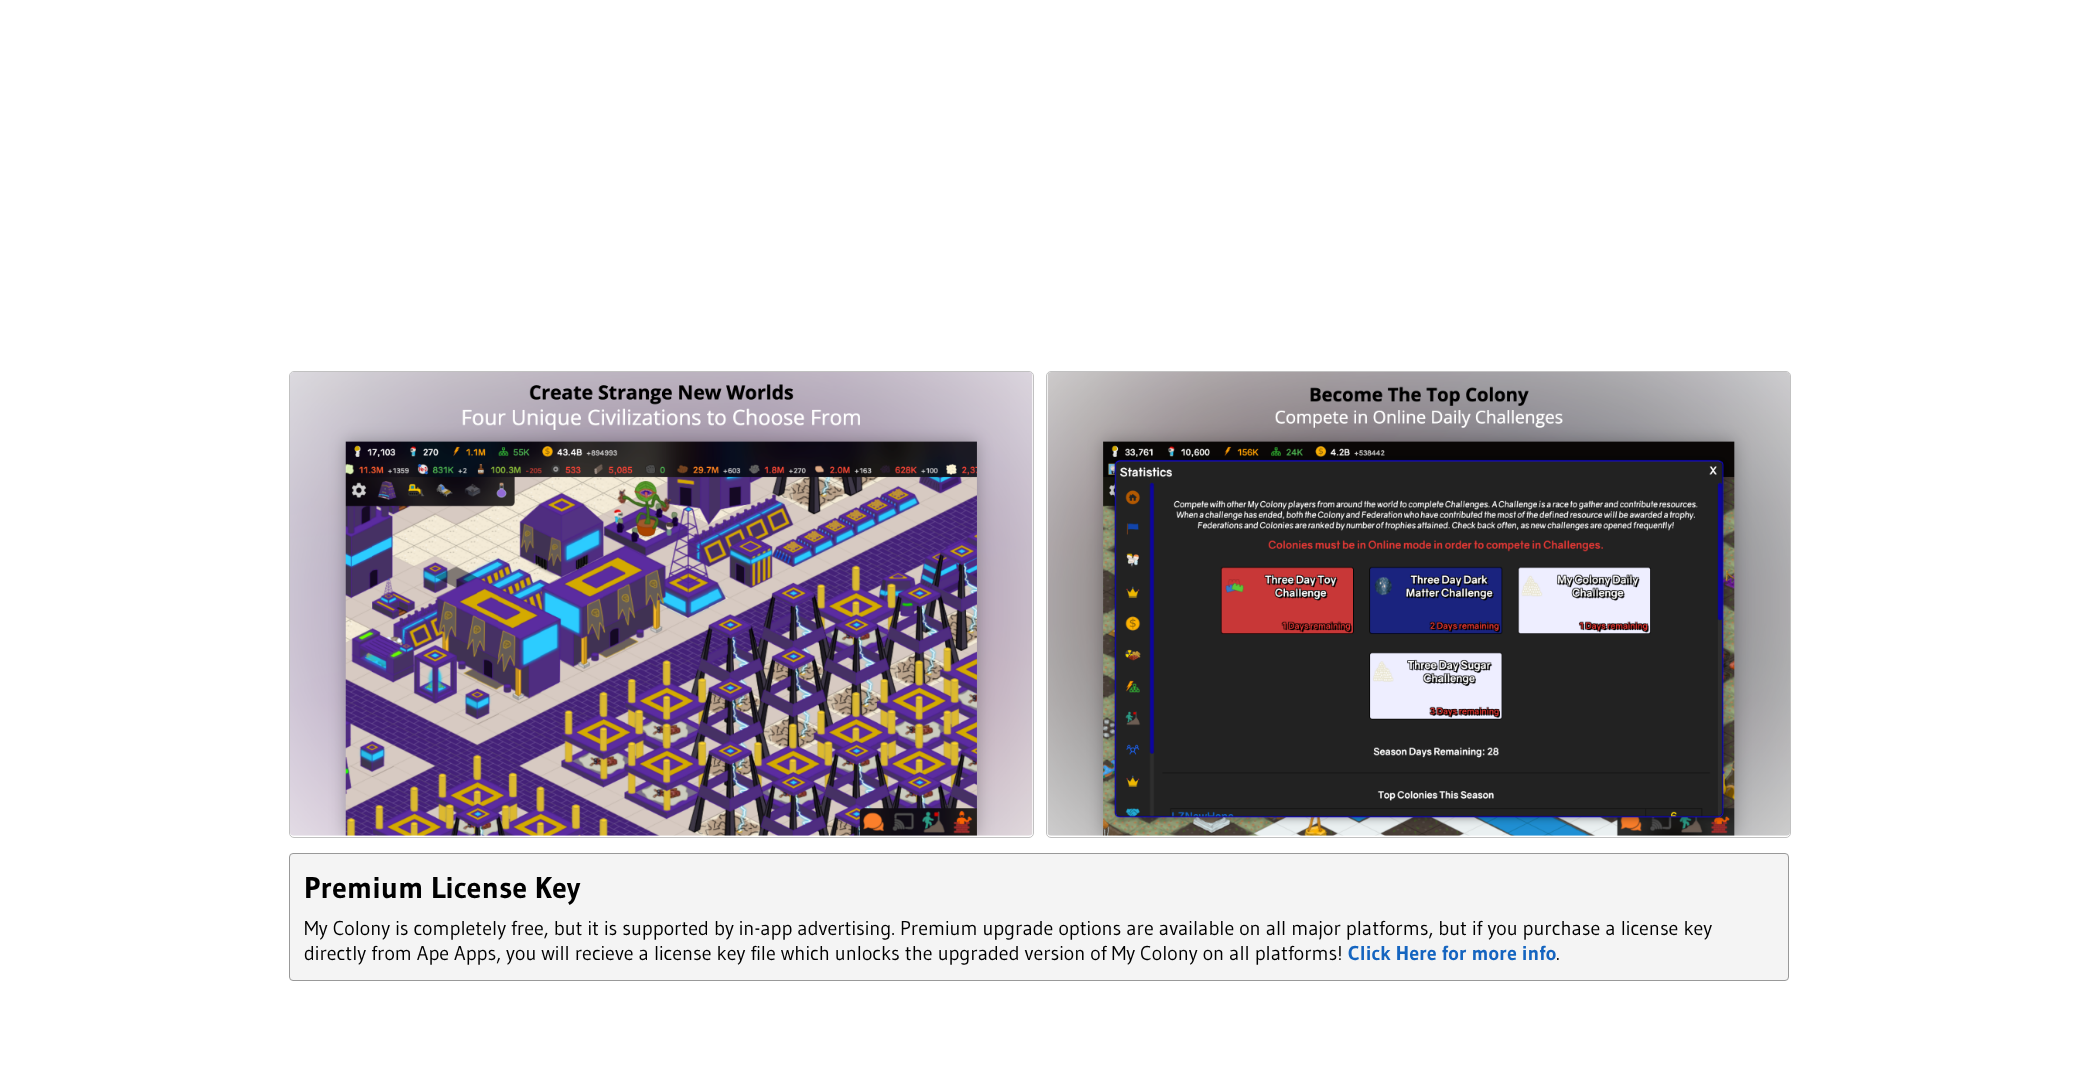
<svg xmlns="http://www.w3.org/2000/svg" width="2076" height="1083">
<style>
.a{font:bold 30px Gudea;fill:#000}
.b{font:20px Gudea;fill:#000}
.c{font:bold 20px Gudea;fill:#1565c0}
</style>
<rect width="100%" height="100%" fill="#fff"/>
<rect fill="none" stroke="#c1c1c1" x="289.5" y="371.5" width="744" height="466" rx="4.5"/>
<image href="1.png" x="290" y="372" width="743" height="464"/>
<rect fill="none" stroke="#c1c1c1" x="1046.5" y="371.5" width="744" height="466" rx="4.5"/>
<image href="2.png" x="1047" y="372" width="743" height="464"/>
<rect fill="#f4f4f4" stroke="#999" x="289.5" y="853.5" width="1499" height="127" rx="3.5"/>
<text class="a" x="304" y="898">Premium License Key</text>
<text class="b" x="304" y="935">My Colony is completely free, but it is supported by in-app advertising. Premium upgrade options are available on all major platforms, but if you purchase a license key</text>
<text class="b" x="304" y="960">directly from Ape Apps, you will recieve a license key file which unlocks the upgraded version of My Colony on all platforms!</text>
<text class="c" x="1348" y="960">Click Here for more info</text>
<text class="b" x="1556" y="960">.</text>
</svg>
